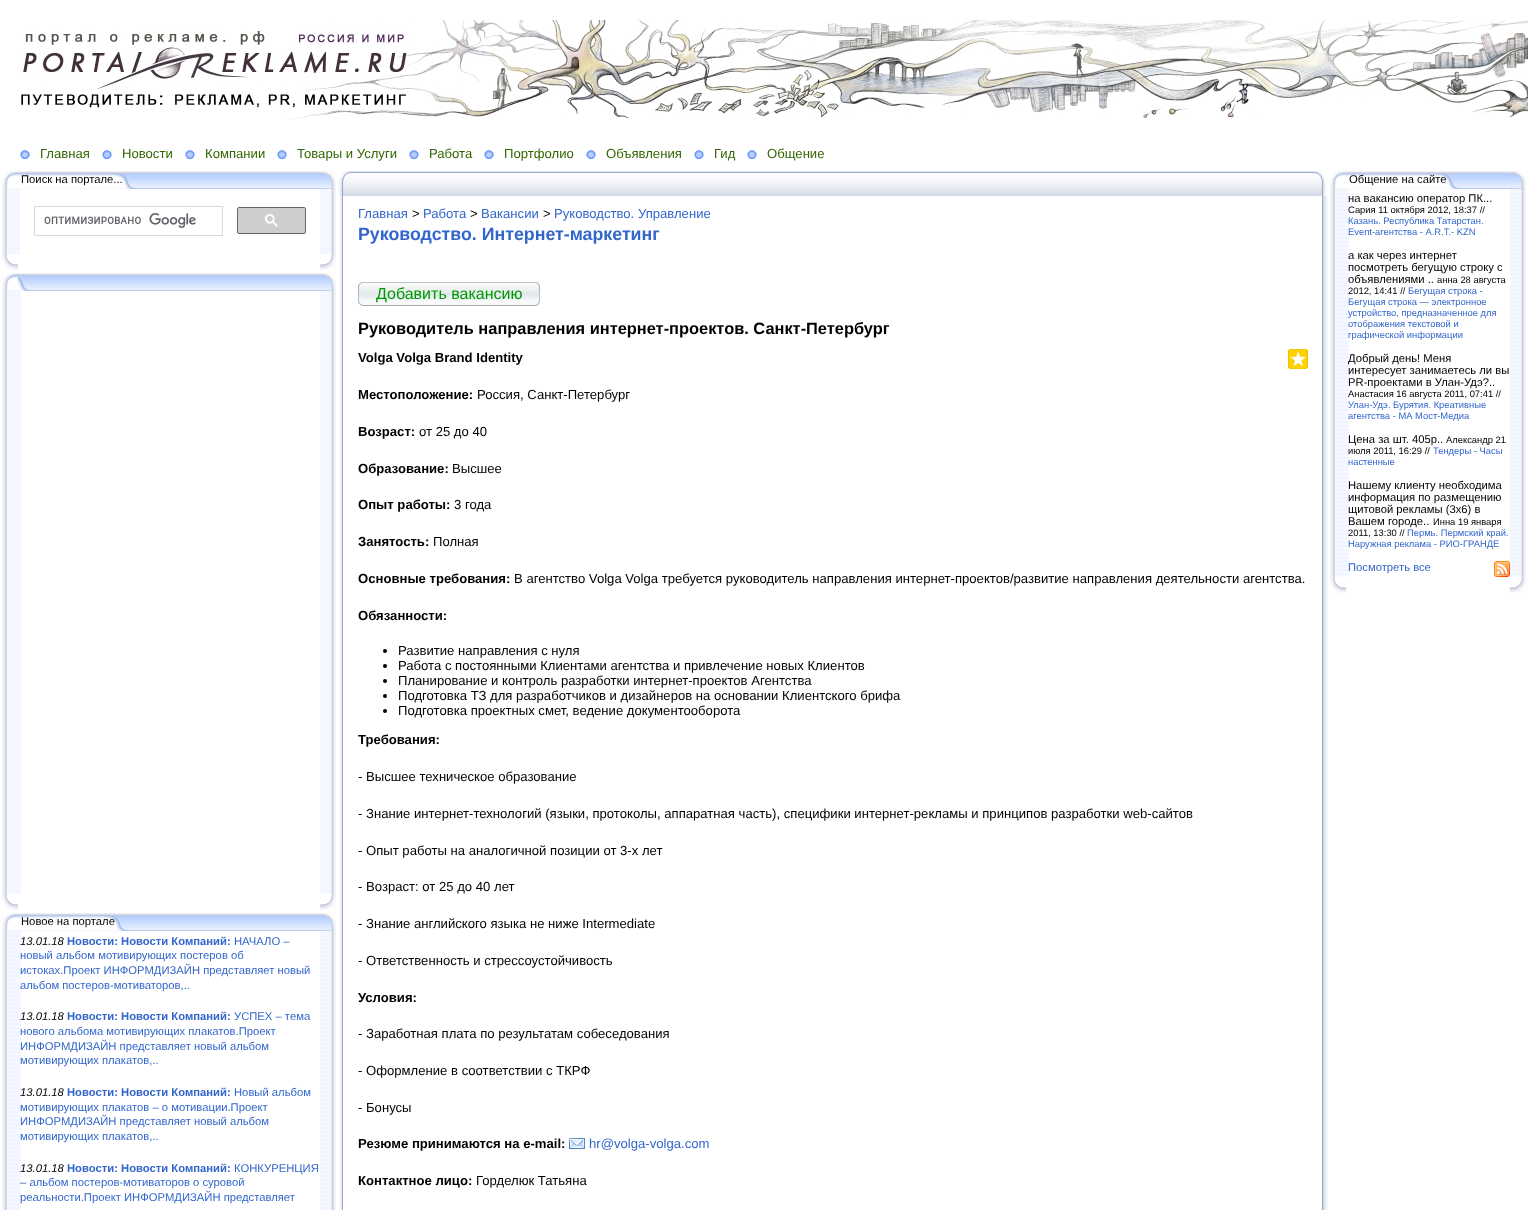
<svg xmlns="http://www.w3.org/2000/svg" width="1528" height="1210">
<style>
.a{font:13.12px Liberation Sans;fill:#360}
.b{font:11.25px Liberation Sans;fill:#000}
.c{font:italic 11.25px Liberation Sans;fill:#000}
.d{font:bold 11.25px Liberation Sans;fill:#36c}
.e{font:11.25px Liberation Sans;fill:#36c}
.f{font:13.12px Liberation Sans;fill:#36c}
.g{font:13.12px Liberation Sans;fill:#000}
.h{font:bold 17.8px Liberation Sans;fill:#36c}
.i{font:16px Liberation Sans;fill:#090}
.j{font:bold 16.4px Liberation Sans;fill:#000}
.k{font:bold 13.12px Liberation Sans;fill:#000}
.l{font:9.4px Liberation Sans;fill:#000}
.m{font:9.4px Liberation Sans;fill:#36c}
</style>
<rect width="100%" height="100%" fill="#fff"/>
<image href="1.png" x="21" y="20" width="1507" height="100"/>
<image href="2.png" x="20" y="150" width="10" height="9"/>
<image href="2.png" x="102" y="150" width="10" height="9"/>
<image href="2.png" x="185" y="150" width="10" height="9"/>
<image href="2.png" x="277" y="150" width="10" height="9"/>
<image href="2.png" x="409" y="150" width="10" height="9"/>
<image href="2.png" x="484" y="150" width="10" height="9"/>
<image href="2.png" x="586" y="150" width="10" height="9"/>
<image href="2.png" x="694" y="150" width="10" height="9"/>
<image href="2.png" x="747" y="150" width="10" height="9"/>
<image href="3.png" x="15" y="171" width="305" height="18"/>
<image href="4.png" x="15" y="173" width="121" height="16"/>
<image href="5.png" x="0" y="171" width="15" height="18"/>
<image href="6.png" x="320" y="171" width="16" height="18"/>
<image href="7.png" x="2" y="189" width="19" height="65"/>
<path fill="#fff" d="M20 192h1v62H20z"/>
<path fill="none" stroke="#d9d9d9" d="M34.5 206.5h188v29H34.5z"/>
<image href="8.png" x="44" y="213" width="152" height="15"/>
<rect fill="#cecece" stroke="#666" x="237.5" y="207.5" width="68" height="26" rx="1.5"/>
<image href="9.png" x="265" y="214" width="13" height="13"/>
<image href="10.png" x="320" y="189" width="16" height="65"/>
<image href="11.png" x="2" y="254" width="16" height="16"/>
<image href="12.png" x="320" y="254" width="16" height="16"/>
<image href="13.png" x="18" y="273" width="302" height="18"/>
<image href="14.png" x="18" y="275" width="13" height="16"/>
<image href="15.png" x="0" y="273" width="18" height="18"/>
<image href="6.png" x="320" y="273" width="16" height="18"/>
<image href="16.png" x="2" y="291" width="19" height="603"/>
<image href="17.png" x="320" y="291" width="16" height="603"/>
<image href="11.png" x="2" y="894" width="16" height="16"/>
<image href="12.png" x="320" y="894" width="16" height="16"/>
<image href="3.png" x="15" y="913" width="305" height="18"/>
<image href="18.png" x="15" y="915" width="113" height="16"/>
<image href="5.png" x="0" y="913" width="15" height="18"/>
<image href="6.png" x="320" y="913" width="16" height="18"/>
<image href="19.png" x="2" y="931" width="19" height="279"/>
<image href="20.png" x="320" y="931" width="16" height="279"/>
<image href="21.png" x="351" y="171" width="963" height="25"/>
<image href="22.png" x="1314" y="171" width="14" height="25"/>
<image href="23.png" x="338" y="171" width="13" height="25"/>
<image href="24.png" x="339" y="196" width="4" height="1014"/>
<image href="25.png" x="1322" y="196" width="6" height="1014"/>
<image href="26.png" x="522" y="282" width="18" height="24"/>
<image href="27.png" x="358" y="282" width="164" height="24"/>
<image href="28.png" x="1288" y="349" width="20" height="20"/>
<circle fill="#000" cx="385" cy="651" r="2"/>
<circle fill="#000" cx="385" cy="666" r="2"/>
<circle fill="#000" cx="385" cy="681" r="2"/>
<circle fill="#000" cx="385" cy="696" r="2"/>
<circle fill="#000" cx="385" cy="711" r="2"/>
<image href="29.png" x="569" y="1138" width="16" height="11"/>
<image href="30.png" x="1343" y="171" width="167" height="18"/>
<image href="31.png" x="1343" y="173" width="117" height="16"/>
<image href="5.png" x="1328" y="171" width="15" height="18"/>
<image href="6.png" x="1510" y="171" width="16" height="18"/>
<image href="32.png" x="1330" y="189" width="19" height="388"/>
<image href="33.png" x="1494" y="561" width="16" height="16"/>
<image href="34.png" x="1510" y="189" width="16" height="388"/>
<image href="11.png" x="1330" y="577" width="16" height="16"/>
<image href="12.png" x="1510" y="577" width="16" height="16"/>
<text class="a" x="40" y="158">Главная</text>
<text class="a" x="122" y="158">Новости</text>
<text class="a" x="205" y="158">Компании</text>
<text class="a" x="297" y="158">Товары и Услуги</text>
<text class="a" x="429" y="158">Работа</text>
<text class="a" x="504" y="158">Портфолио</text>
<text class="a" x="606" y="158">Объявления</text>
<text class="a" x="714" y="158">Гид</text>
<text class="a" x="767" y="158">Общение</text>
<text class="b" x="21" y="183">Поиск на портале...</text>
<text class="b" x="21" y="925">Новое на портале</text>
<text class="c" x="20" y="945">13.01.18</text>
<text class="d" x="67" y="945">Новости: Новости Компаний:</text>
<text class="e" x="234" y="945">НАЧАЛО –</text>
<text class="e" x="20" y="959">новый альбом мотивирующих постеров об</text>
<text class="e" x="20" y="974">истоках.Проект ИНФОРМДИЗАЙН представляет новый</text>
<text class="e" x="20" y="989">альбом постеров-мотиваторов,..</text>
<text class="c" x="20" y="1020">13.01.18</text>
<text class="d" x="67" y="1020">Новости: Новости Компаний:</text>
<text class="e" x="234" y="1020">УСПЕХ – тема</text>
<text class="e" x="20" y="1035">нового альбома мотивирующих плакатов.Проект</text>
<text class="e" x="20" y="1050">ИНФОРМДИЗАЙН представляет новый альбом</text>
<text class="e" x="20" y="1064">мотивирующих плакатов,..</text>
<text class="c" x="20" y="1096">13.01.18</text>
<text class="d" x="67" y="1096">Новости: Новости Компаний:</text>
<text class="e" x="234" y="1096">Новый альбом</text>
<text class="e" x="20" y="1111">мотивирующих плакатов – о мотивации.Проект</text>
<text class="e" x="20" y="1125">ИНФОРМДИЗАЙН представляет новый альбом</text>
<text class="e" x="20" y="1140">мотивирующих плакатов,..</text>
<text class="c" x="20" y="1172">13.01.18</text>
<text class="d" x="67" y="1172">Новости: Новости Компаний:</text>
<text class="e" x="234" y="1172">КОНКУРЕНЦИЯ</text>
<text class="e" x="20" y="1186">– альбом постеров-мотиваторов о суровой</text>
<text class="e" x="20" y="1201">реальности.Проект ИНФОРМДИЗАЙН представляет</text>
<text class="f" x="358" y="218">Главная</text>
<text class="g" x="412" y="218">&gt;</text>
<text class="f" x="423" y="218">Работа</text>
<text class="g" x="470" y="218">&gt;</text>
<text class="f" x="481" y="218">Вакансии</text>
<text class="g" x="543" y="218">&gt;</text>
<text class="f" x="554" y="218">Руководство. Управление</text>
<text class="h" x="358" y="240">Руководство. Интернет-маркетинг</text>
<text class="i" x="376" y="299">Добавить вакансию</text>
<text class="j" x="358" y="334">Руководитель направления интернет-проектов. Санкт-Петербург</text>
<text class="k" x="358" y="362">Volga Volga Brand Identity</text>
<text class="k" x="358" y="399">Местоположение:</text>
<text class="g" x="477" y="399">Россия, Санкт-Петербург</text>
<text class="k" x="358" y="436">Возраст:</text>
<text class="g" x="419" y="436">от 25 до 40</text>
<text class="k" x="358" y="473">Образование:</text>
<text class="g" x="452" y="473">Высшее</text>
<text class="k" x="358" y="509">Опыт работы:</text>
<text class="g" x="454" y="509">3 года</text>
<text class="k" x="358" y="546">Занятость:</text>
<text class="g" x="433" y="546">Полная</text>
<text class="k" x="358" y="583">Основные требования:</text>
<text class="g" x="514" y="583">В агентство Volga Volga требуется руководитель направления интернет-проектов/развитие направления деятельности агентства.</text>
<text class="k" x="358" y="620">Обязанности:</text>
<text class="g" x="398" y="655">Развитие направления с нуля</text>
<text class="g" x="398" y="670">Работа с постоянными Клиентами агентства и привлечение новых Клиентов</text>
<text class="g" x="398" y="685">Планирование и контроль разработки интернет-проектов Агентства</text>
<text class="g" x="398" y="700">Подготовка ТЗ для разработчиков и дизайнеров на основании Клиентского брифа</text>
<text class="g" x="398" y="715">Подготовка проектных смет, ведение документооборота</text>
<text class="k" x="358" y="744">Требования:</text>
<text class="g" x="358" y="781">- Высшее техническое образование</text>
<text class="g" x="358" y="818">- Знание интернет-технологий (языки, протоколы, аппаратная часть), специфики интернет-рекламы и принципов разработки web-сайтов</text>
<text class="g" x="358" y="855">- Опыт работы на аналогичной позиции от 3-х лет</text>
<text class="g" x="358" y="891">- Возраст: от 25 до 40 лет</text>
<text class="g" x="358" y="928">- Знание английского языка не ниже Intermediate</text>
<text class="g" x="358" y="965">- Ответственность и стресcоустойчивость</text>
<text class="k" x="358" y="1002">Условия:</text>
<text class="g" x="358" y="1038">- Заработная плата по результатам собеседования</text>
<text class="g" x="358" y="1075">- Оформление в соответствии с ТКРФ</text>
<text class="g" x="358" y="1112">- Бонусы</text>
<text class="k" x="358" y="1148">Резюме принимаются на e-mail:</text>
<text class="f" x="589" y="1148">hr@volga-volga.com</text>
<text class="k" x="358" y="1185">Контактное лицо:</text>
<text class="g" x="476" y="1185">Горделюк Татьяна</text>
<text class="b" x="1349" y="183">Общение на сайте</text>
<text class="b" x="1348" y="202">на вакансию оператор ПК...</text>
<text class="l" x="1348" y="213">Сария 11 октября 2012, 18:37 //</text>
<text class="m" x="1348" y="224">Казань. Республика Татарстан.</text>
<text class="m" x="1348" y="235">Event-агентства - A.R.T.- KZN</text>
<text class="b" x="1348" y="259">а как через интернет</text>
<text class="b" x="1348" y="271">посмотреть бегущую строку с</text>
<text class="b" x="1348" y="283">объявлениями ..</text>
<text class="l" x="1437" y="283">анна 28 августа</text>
<text class="l" x="1348" y="294">2012, 14:41 //</text>
<text class="m" x="1408" y="294">Бегущая строка -</text>
<text class="m" x="1348" y="305">Бегущая строка — электронное</text>
<text class="m" x="1348" y="316">устройство, предназначенное для</text>
<text class="m" x="1348" y="327">отображения текстовой и</text>
<text class="m" x="1348" y="338">графической информации</text>
<text class="b" x="1348" y="362">Добрый день! Меня</text>
<text class="b" x="1348" y="374">интересует занимаетесь ли вы</text>
<text class="b" x="1348" y="386">PR-проектами в Улан-Удэ?..</text>
<text class="l" x="1348" y="397">Анастасия 16 августа 2011, 07:41 //</text>
<text class="m" x="1348" y="408">Улан-Удэ. Бурятия. Креативные</text>
<text class="m" x="1348" y="419">агентства - МА Мост-Медиа</text>
<text class="b" x="1348" y="443">Цена за шт. 405р..</text>
<text class="l" x="1446" y="443">Александр 21</text>
<text class="l" x="1348" y="454">июля 2011, 16:29 //</text>
<text class="m" x="1433" y="454">Тендеры - Часы</text>
<text class="m" x="1348" y="465">настенные</text>
<text class="b" x="1348" y="489">Нашему клиенту необходима</text>
<text class="b" x="1348" y="501">информация по размещению</text>
<text class="b" x="1348" y="513">щитовой рекламы (3х6) в</text>
<text class="b" x="1348" y="525">Вашем городе..</text>
<text class="l" x="1433" y="525">Инна 19 января</text>
<text class="l" x="1348" y="536">2011, 13:30 //</text>
<text class="m" x="1407" y="536">Пермь. Пермский край.</text>
<text class="m" x="1348" y="547">Наружная реклама - РИО-ГРАНДЕ</text>
<text class="e" x="1348" y="571">Посмотреть все</text>
</svg>
